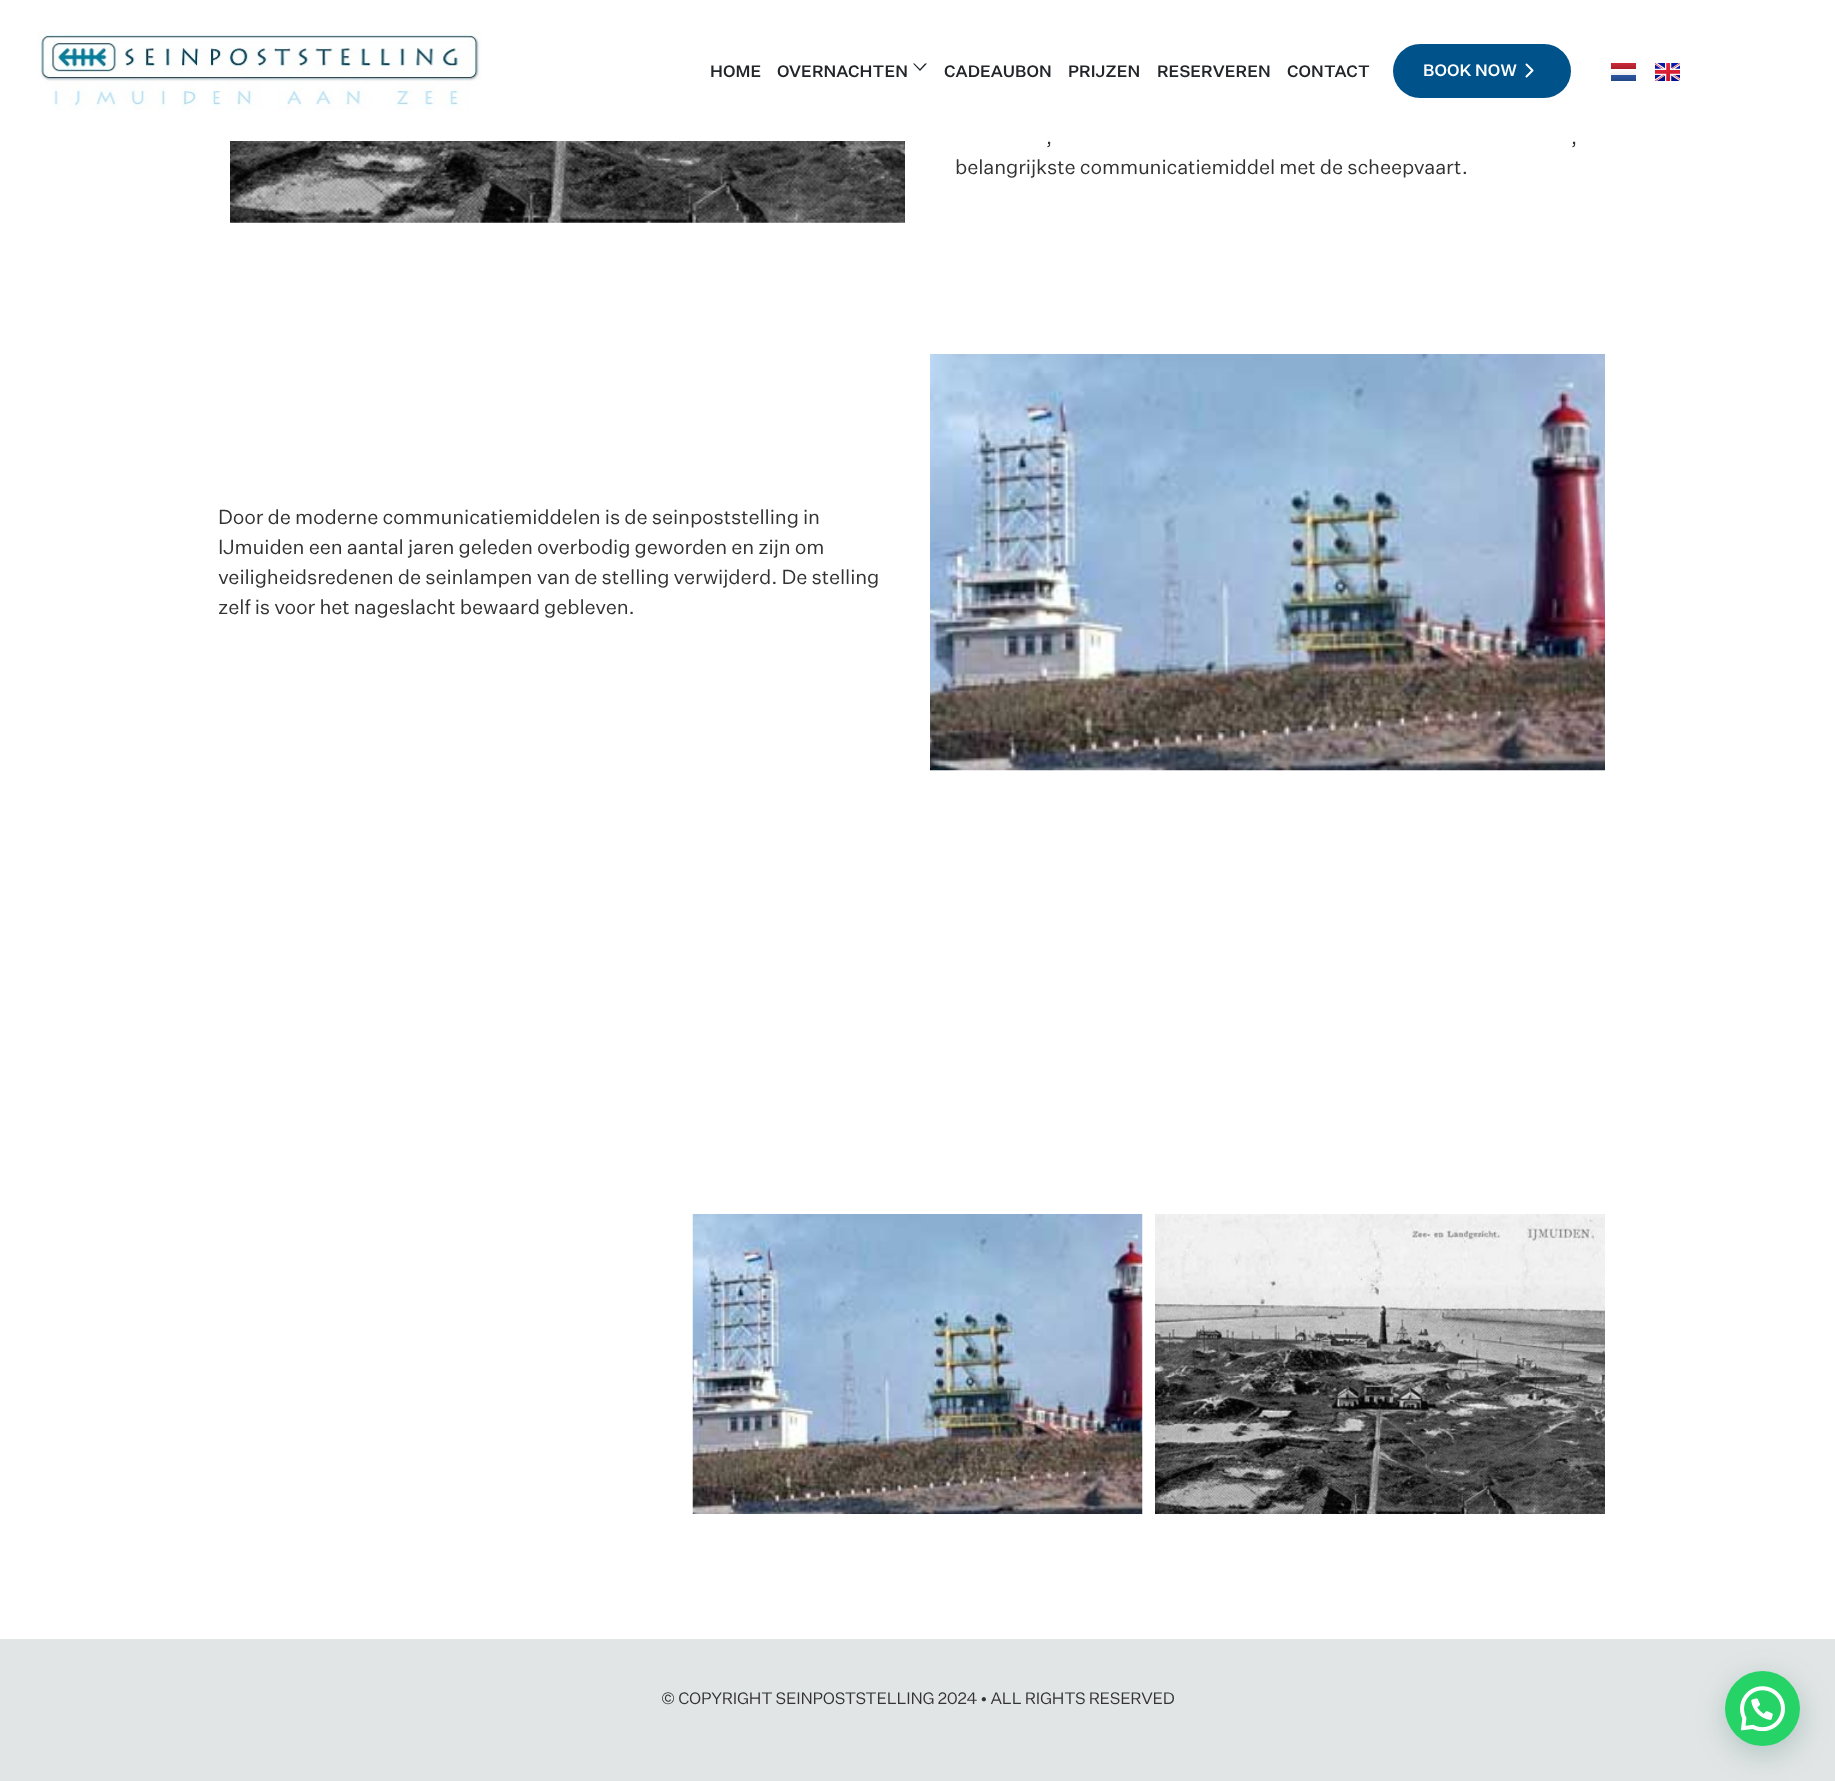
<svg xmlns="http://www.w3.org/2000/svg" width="1835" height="1781">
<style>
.a{font:500 16.25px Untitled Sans;letter-spacing:0.1px;fill:#22262a}
.b{font:500 16.25px Untitled Sans;letter-spacing:0.1px;fill:#fff}
.c{font:20px Untitled Sans;letter-spacing:-0.12px;fill:#333}
.d{font:16.25px Untitled Sans;letter-spacing:-0.25px;fill:#333}
</style>
<defs>
<linearGradient id="g1" gradientUnits="userSpaceOnUse" x1="1624" y1="63" x2="1624" y2="69"><stop offset="0" stop-color="#ca2b39"/><stop offset="1" stop-color="#ac1f2c"/></linearGradient>
<linearGradient id="g2" gradientUnits="userSpaceOnUse" x1="1624" y1="69" x2="1624" y2="75"><stop offset="0" stop-color="#fff"/><stop offset="1" stop-color="#f0f0f0"/></linearGradient>
<linearGradient id="g3" gradientUnits="userSpaceOnUse" x1="1624" y1="75" x2="1624" y2="81"><stop offset="0" stop-color="#2c56a2"/><stop offset="1" stop-color="#244889"/></linearGradient>
</defs>
<rect width="100%" height="100%" fill="#fff"/>
<image href="1.png" x="38" y="31" width="443" height="79"/>
<path fill="#22262a" d="M927 63.5l-7 7.5v-2l5-5.5zm-7 7.5l-7-7.5h1.5l5.5 5.5z"/>
<rect fill="#00538a" x="1393" y="44" width="178" height="54" rx="27"/>
<path fill="none" stroke="#fff" stroke-width="2" stroke-linecap="round" stroke-linejoin="round" d="M1526.5 76.5l6-6l-6-6"/>
<path fill="url(#g1)" d="M1611 63h25v6H1611z"/>
<path fill="url(#g2)" d="M1611 70h25v5H1611z"/>
<path fill="url(#g3)" d="M1611 75h25v6H1611z"/>
<image href="2.png" x="1655" y="63" width="25" height="18"/>
<image href="3.png" x="230" y="141" width="675" height="82"/>
<image href="4.png" x="930" y="354" width="675" height="417"/>
<image href="5.png" x="692" y="1214" width="451" height="300"/>
<image href="6.png" x="1155" y="1214" width="450" height="300"/>
<path fill="#e2e5e5" d="M0 1639h1835v142H0z"/>
<rect fill="#075e543d" filter="blur(15px)" x="1726" y="1679" width="75" height="75" rx="37.5"/>
<circle fill="#25d366" cx="1762.5" cy="1708.5" r="37.5"/>
<image href="7.png" x="1740" y="1686" width="45" height="45"/>
<text class="a" x="710" y="77">HOME</text>
<text class="a" x="777" y="77">OVERNACHTEN</text>
<text class="a" x="944" y="77">CADEAUBON</text>
<text class="a" x="1068" y="77">PRIJZEN</text>
<text class="a" x="1157" y="77">RESERVEREN</text>
<text class="a" x="1287" y="77">CONTACT</text>
<text class="b" x="1423" y="76">BOOK NOW</text>
<text class="c" x="1046" y="144">,</text>
<text class="c" x="1571" y="144">,</text>
<text class="c" x="955" y="174">belangrijkste communicatiemiddel met de scheepvaart.</text>
<text class="c" x="218" y="524">Door de moderne communicatiemiddelen is de seinpoststelling in</text>
<text class="c" x="218" y="554">IJmuiden een aantal jaren geleden overbodig geworden en zijn om</text>
<text class="c" x="218" y="584">veiligheidsredenen de seinlampen van de stelling verwijderd. De stelling</text>
<text class="c" x="218" y="614">zelf is voor het nageslacht bewaard gebleven.</text>
<text class="d" x="661" y="1704">© COPYRIGHT SEINPOSTSTELLING 2024 • ALL RIGHTS RESERVED</text>
</svg>
